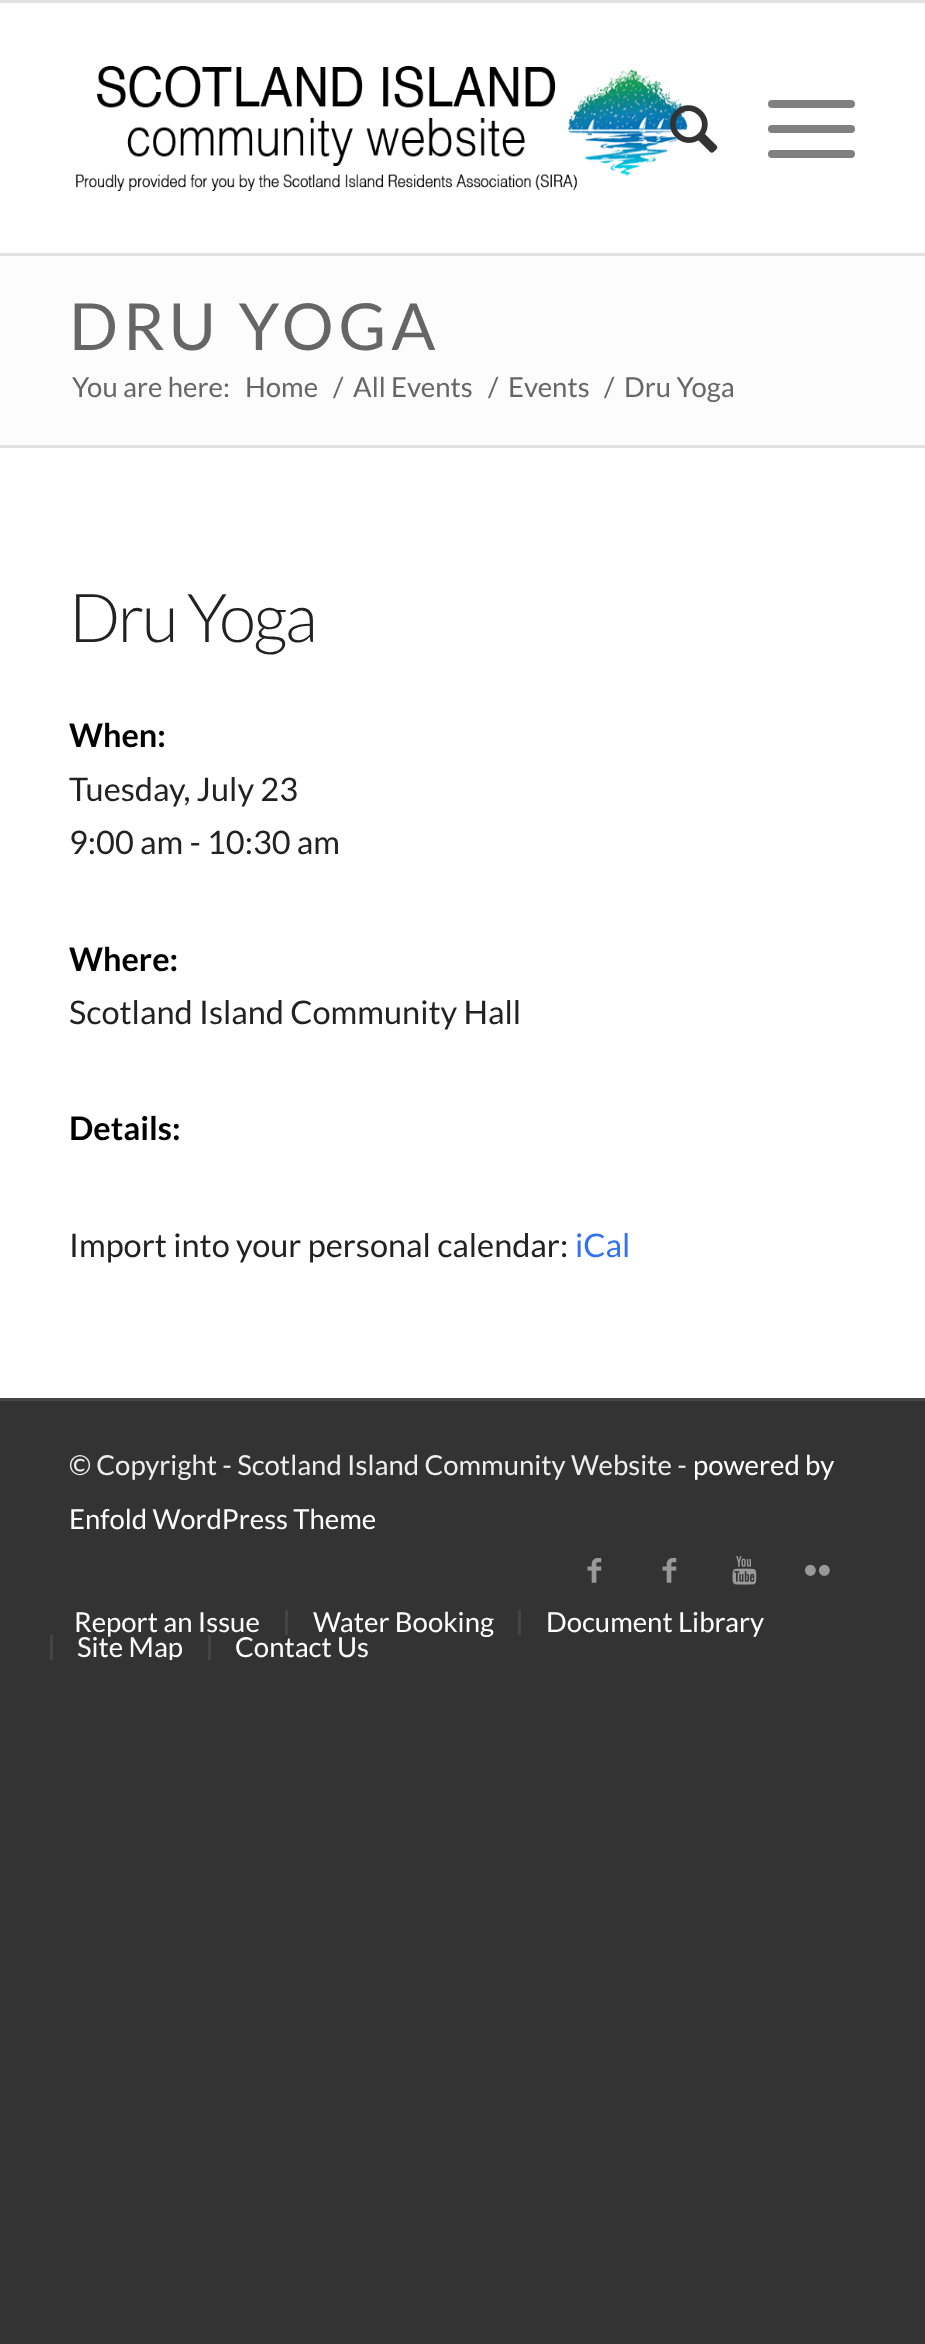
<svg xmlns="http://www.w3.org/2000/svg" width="925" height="2344">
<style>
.a{font:65px Lato;letter-spacing:5px;fill:#666}
.b{font:27.5px Lato;fill:#666}
.c{font:300 67.5px Lato;letter-spacing:-2.5px;fill:#222}
.d{font:bold 32.5px Lato;fill:#000}
.e{font:32.5px Lato;fill:#222}
.f{font:32.5px Lato;fill:#3372f0}
.g{font:27.5px Lato;fill:#eee}
.h{font:27.5px Lato;fill:#fff}
</style>
<defs>
<clipPath id="clip1"><path d="M33 1595h785v65H33z"/></clipPath>
</defs>
<rect width="100%" height="100%" fill="#333"/>
<path fill="#e1e1e1" d="M0 0h925v3H0z"/>
<path fill="#e1e1e1" d="M0 253h925v3H0z"/>
<path fill="#fff" d="M0 3h925v250H0z"/>
<image href="1.png" x="76" y="66" width="612" height="125"/>
<image href="2.png" x="670" y="105" width="48" height="48"/>
<rect fill="#808080" x="768" y="125" width="87" height="8" rx="4"/>
<rect fill="#808080" x="768" y="100" width="87" height="8" rx="4"/>
<rect fill="#808080" x="768" y="150" width="87" height="8" rx="4"/>
<path fill="#fff" d="M0 448h925v950H0z"/>
<path fill="#fcfcfc" d="M0 256h925v189H0z"/>
<path fill="#e1e1e1" d="M0 445h925v3H0z"/>
<path fill="#444" d="M0 1398h925v3H0z"/>
<image href="3.png" x="587" y="1558" width="15" height="25"/>
<image href="3.png" x="662" y="1558" width="15" height="25"/>
<image href="4.png" x="732" y="1556" width="25" height="29"/>
<image href="5.png" x="805" y="1564" width="25" height="12"/>
<path fill="#444" d="M285 1610h3v25H285z"/>
<path fill="#444" d="M518 1610h3v25H518z"/>
<path fill="#444" d="M50 1635h3v25H50z"/>
<text class="a" x="69" y="350">DRU YOGA</text>
<text class="b" x="72" y="397">You are here:</text>
<text class="b" x="245" y="397">Home</text>
<text class="b" x="333" y="397">/</text>
<text class="b" x="353" y="397">All Events</text>
<text class="b" x="488" y="397">/</text>
<text class="b" x="508" y="397">Events</text>
<text class="b" x="604" y="397">/</text>
<text class="b" x="624" y="397">Dru Yoga</text>
<text class="c" x="69" y="642">Dru Yoga</text>
<text class="d" x="69" y="747">When:</text>
<text class="e" x="69" y="801">Tuesday, July 23</text>
<text class="e" x="69" y="854">9:00 am - 10:30 am</text>
<text class="d" x="69" y="971">Where:</text>
<text class="e" x="69" y="1024">Scotland Island Community Hall</text>
<text class="d" x="69" y="1140">Details:</text>
<text class="e" x="69" y="1257">Import into your personal calendar:</text>
<text class="f" x="575" y="1257">iCal</text>
<text class="g" x="69" y="1475">© Copyright - Scotland Island Community Website -</text>
<text class="h" x="693" y="1475">powered by</text>
<text class="h" x="69" y="1529">Enfold WordPress Theme</text>
<text class="h" x="74" y="1632">Report an Issue</text>
<text class="h" x="313" y="1632">Water Booking</text>
<text class="h" x="546" y="1632">Document Library</text>
<g clip-path="url(#clip1)">
<text class="h" x="77" y="1657">Site Map</text>
</g>
<path fill="#444" d="M208 1635h3v25H208z"/>
<text class="h" x="235" y="1657">Contact Us</text>
</svg>
